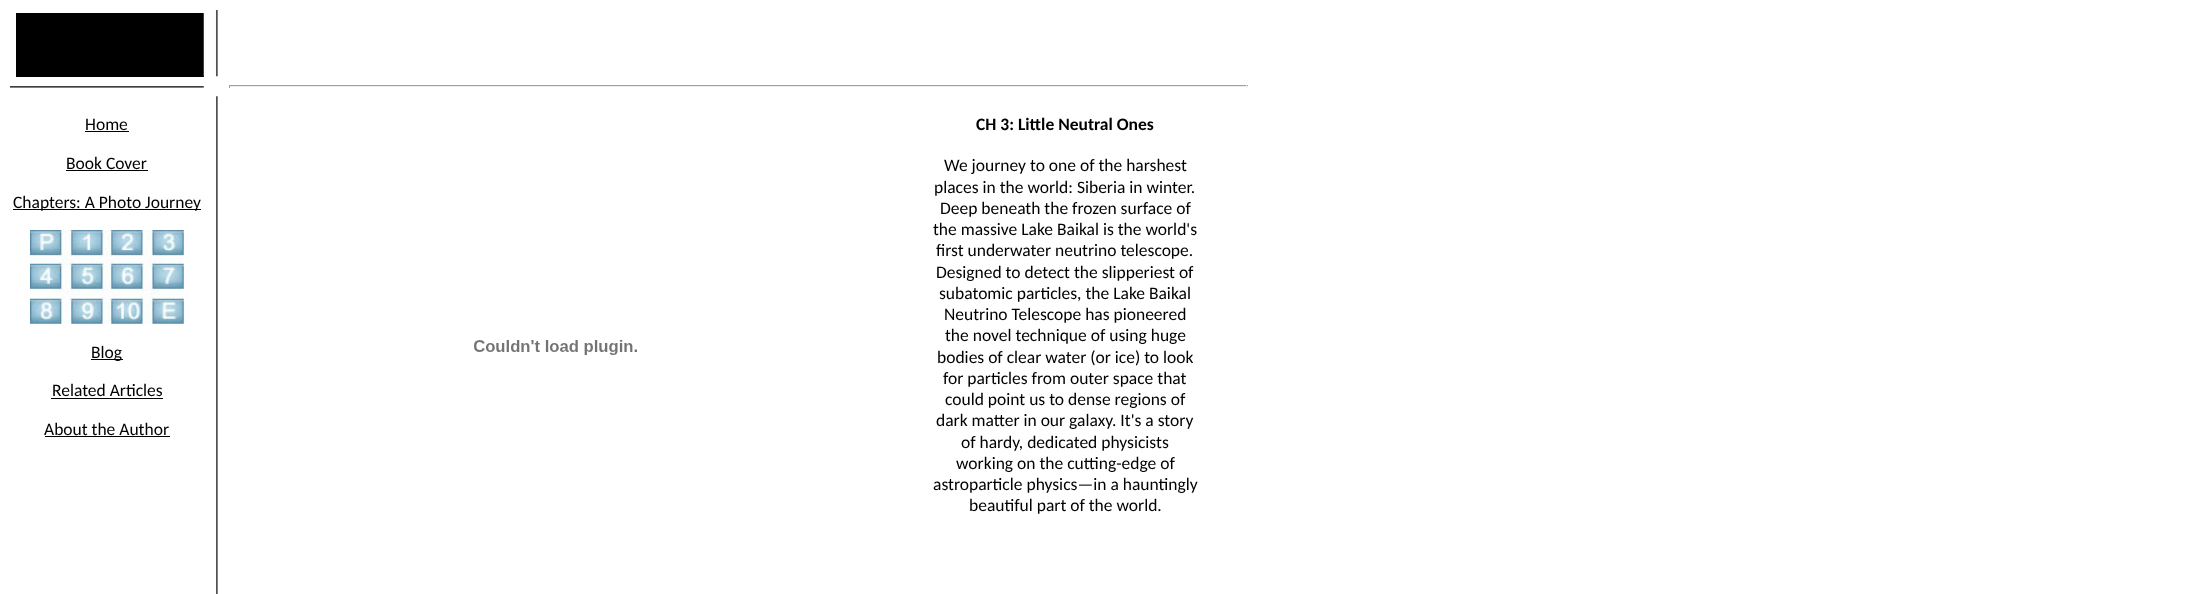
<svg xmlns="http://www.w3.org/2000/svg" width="2195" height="594">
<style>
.a{font:17.5px Carlito;fill:#000}
.b{font:bold 17.5px Carlito;fill:#000}
</style>
<rect width="100%" height="100%" fill="#fff"/>
<path fill="#000" d="M16 13h188v64H16z"/>
<image href="1.png" x="203" y="10" width="15" height="67"/>
<image href="2.png" x="10" y="86" width="194" height="2"/>
<path fill="#9f9f9f" d="M229 85h1019v1H229z"/>
<path fill="#eee" d="M1246 85h1v3H1246z"/>
<path fill="#eee" d="M229 86h1019v1H229z"/>
<path fill="#9f9f9f" d="M229 85h1v3H229z"/>
<path fill="#000" d="M85 131h44v1H85z"/>
<path fill="#000" d="M66 170h82v1H66z"/>
<path fill="#000" d="M13 209h188v1H13z"/>
<image href="3.png" x="30" y="230" width="154" height="94"/>
<path fill="#000" d="M91 359h32v1H91z"/>
<path fill="#000" d="M51 398h112v1H51z"/>
<path fill="#000" d="M45 436h125v1H45z"/>
<image href="4.png" x="216" y="96" width="2" height="498"/>
<image href="5.png" x="474" y="340" width="163" height="15"/>
<text class="a" x="85" y="130">Home</text>
<text class="a" x="66" y="169">Book Cover</text>
<text class="a" x="13" y="208">Chapters: A Photo Journey</text>
<text class="a" x="91" y="358">Blog</text>
<text class="a" x="52" y="396">Related Articles</text>
<text class="a" x="44" y="435">About the Author</text>
<text class="b" x="976" y="130">CH 3: Little Neutral Ones</text>
<text class="a" x="944" y="171">We journey to one of the harshest</text>
<text class="a" x="934" y="193">places in the world: Siberia in winter.</text>
<text class="a" x="940" y="214">Deep beneath the frozen surface of</text>
<text class="a" x="933" y="235">the massive Lake Baikal is the world's</text>
<text class="a" x="936" y="256">first underwater neutrino telescope.</text>
<text class="a" x="936" y="278">Designed to detect the slipperiest of</text>
<text class="a" x="939" y="299">subatomic particles, the Lake Baikal</text>
<text class="a" x="944" y="320">Neutrino Telescope has pioneered</text>
<text class="a" x="945" y="341">the novel technique of using huge</text>
<text class="a" x="937" y="363">bodies of clear water (or ice) to look</text>
<text class="a" x="943" y="384">for particles from outer space that</text>
<text class="a" x="945" y="405">could point us to dense regions of</text>
<text class="a" x="936" y="426">dark matter in our galaxy. It's a story</text>
<text class="a" x="961" y="448">of hardy, dedicated physicists</text>
<text class="a" x="956" y="469">working on the cutting-edge of</text>
<text class="a" x="933" y="490">astroparticle physics—in a hauntingly</text>
<text class="a" x="969" y="511">beautiful part of the world.</text>
</svg>
